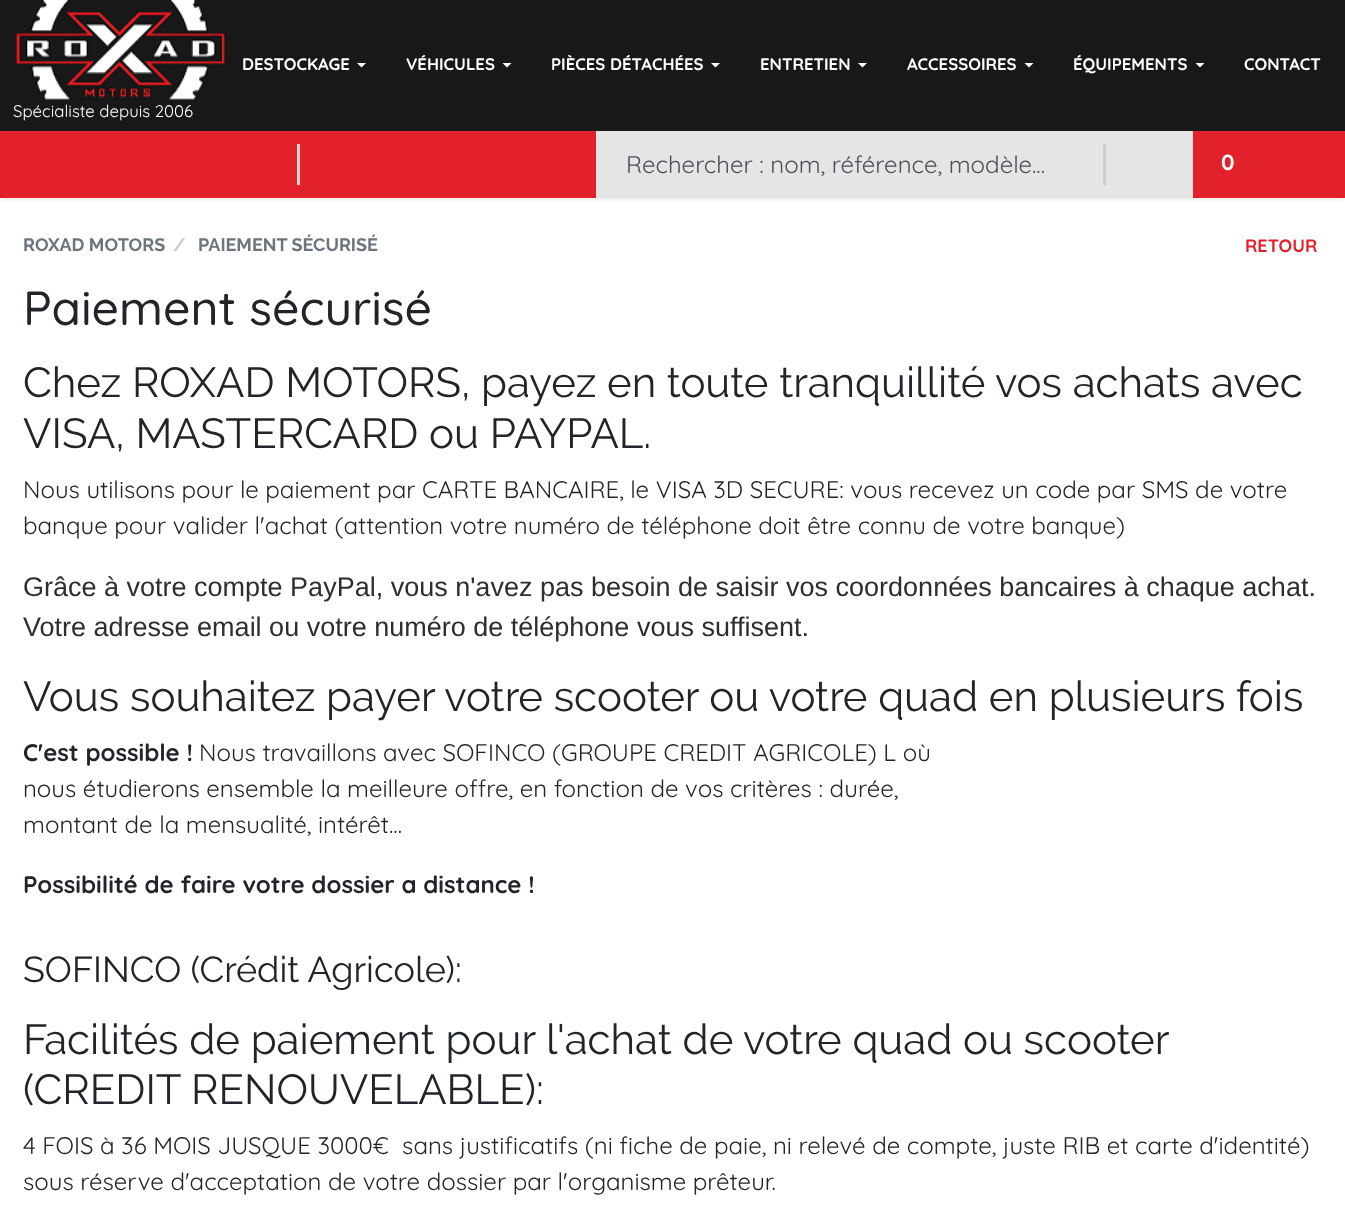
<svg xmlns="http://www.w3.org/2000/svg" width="1345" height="1217">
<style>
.a{font:bold 16.75px Quicksand;fill:#fff}
.b{font:16.75px Quicksand;fill:#fff}
.c{font:24px Quicksand;fill:#495057}
.d{font:bold 22px Quicksand;fill:#fff}
.e{font:bold 18px Raleway;fill:#6c757d}
.f{font:bold 18px Raleway;fill:#ccc}
.g{font:bold 18px Quicksand;fill:#e4212b}
.h{font:500 48px Quicksand;fill:#212529}
.i{font:42px Raleway;fill:#212529}
.j{font:24px Quicksand;fill:#212529}
.k{font:27px Liberation Sans;fill:#2c2e2f}
.l{font:bold 24px Quicksand;fill:#212529}
.m{font:36px Raleway;fill:#212529}
</style>
<rect width="100%" height="100%" fill="#fff"/>
<path fill="#0000000d" filter="blur(1.5px)" d="M3 9h1340v192H3z"/>
<path fill="#181818" d="M0 0h1345v131H0z"/>
<path fill="#fff" d="M357 63h9l-4.5 4.5z"/>
<path fill="#fff" d="M502.5 63h9l-4.5 4.5z"/>
<path fill="#fff" d="M711 63h9l-4.5 4.5z"/>
<path fill="#fff" d="M858 63h9l-4.5 4.5z"/>
<path fill="#fff" d="M1024.5 63h9l-4.5 4.5z"/>
<path fill="#fff" d="M1195.5 63h9l-4.5 4.5z"/>
<image href="1.png" x="14" y="0" width="212" height="100"/>
<path fill="#e2212b" d="M0 131h1345v67H0z"/>
<path fill="#f9d3d5" d="M297 144h3v41H297z"/>
<path fill="#e5e5e5" d="M596 131h597v67H596z"/>
<path fill="#cecece" d="M1103 144h3v41H1103z"/>
<text class="a" x="242" y="70">DESTOCKAGE</text>
<text class="a" x="406" y="70">VÉHICULES</text>
<text class="a" x="551" y="70">PIÈCES DÉTACHÉES</text>
<text class="a" x="760" y="70">ENTRETIEN</text>
<text class="a" x="907" y="70">ACCESSOIRES</text>
<text class="a" x="1073" y="70">ÉQUIPEMENTS</text>
<text class="a" x="1244" y="70">CONTACT</text>
<text class="b" x="13" y="117">Spécialiste depuis 2006</text>
<text class="c" x="626" y="173">Rechercher : nom, référence, modèle...</text>
<text class="d" x="1221" y="170">0</text>
<text class="e" x="23" y="251">ROXAD MOTORS</text>
<text class="f" x="173" y="251">/</text>
<text class="e" x="198" y="251">PAIEMENT SÉCURISÉ</text>
<text class="g" x="1245" y="252">RETOUR</text>
<text class="h" x="23" y="325">Paiement sécurisé</text>
<text class="i" x="23" y="397">Chez ROXAD MOTORS, payez en toute tranquillité vos achats avec</text>
<text class="i" x="23" y="448">VISA, MASTERCARD ou PAYPAL.</text>
<text class="j" x="23" y="498">Nous utilisons pour le paiement par CARTE BANCAIRE, le VISA 3D SECURE: vous recevez un code par SMS de votre</text>
<text class="j" x="23" y="534">banque pour valider l'achat (attention votre numéro de téléphone doit être connu de votre banque)</text>
<text class="k" x="23" y="596">Grâce à votre compte PayPal, vous n'avez pas besoin de saisir vos coordonnées bancaires à chaque achat.</text>
<text class="k" x="23" y="636">Votre adresse email ou votre numéro de téléphone vous suffisent.</text>
<text class="i" x="23" y="711">Vous souhaitez payer votre scooter ou votre quad en plusieurs fois</text>
<text class="l" x="23" y="761">C'est possible !</text>
<text class="j" x="199" y="761">Nous travaillons avec SOFINCO (GROUPE CREDIT AGRICOLE) L où</text>
<text class="j" x="23" y="797">nous étudierons ensemble la meilleure offre, en fonction de vos critères : durée,</text>
<text class="j" x="23" y="833">montant de la mensualité, intérêt...</text>
<text class="l" x="23" y="893">Possibilité de faire votre dossier a distance !</text>
<text class="m" x="23" y="982">SOFINCO (Crédit Agricole):</text>
<text class="i" x="23" y="1054">Facilités de paiement pour l'achat de votre quad ou scooter</text>
<text class="i" x="23" y="1104">(CREDIT RENOUVELABLE):</text>
<text class="j" xml:space="preserve" x="23" y="1154">4 FOIS à 36 MOIS JUSQUE 3000€  sans justificatifs (ni fiche de paie, ni relevé de compte, juste RIB et carte d'identité)</text>
<text class="j" x="23" y="1190">sous réserve d'acceptation de votre dossier par l'organisme prêteur.</text>
</svg>
